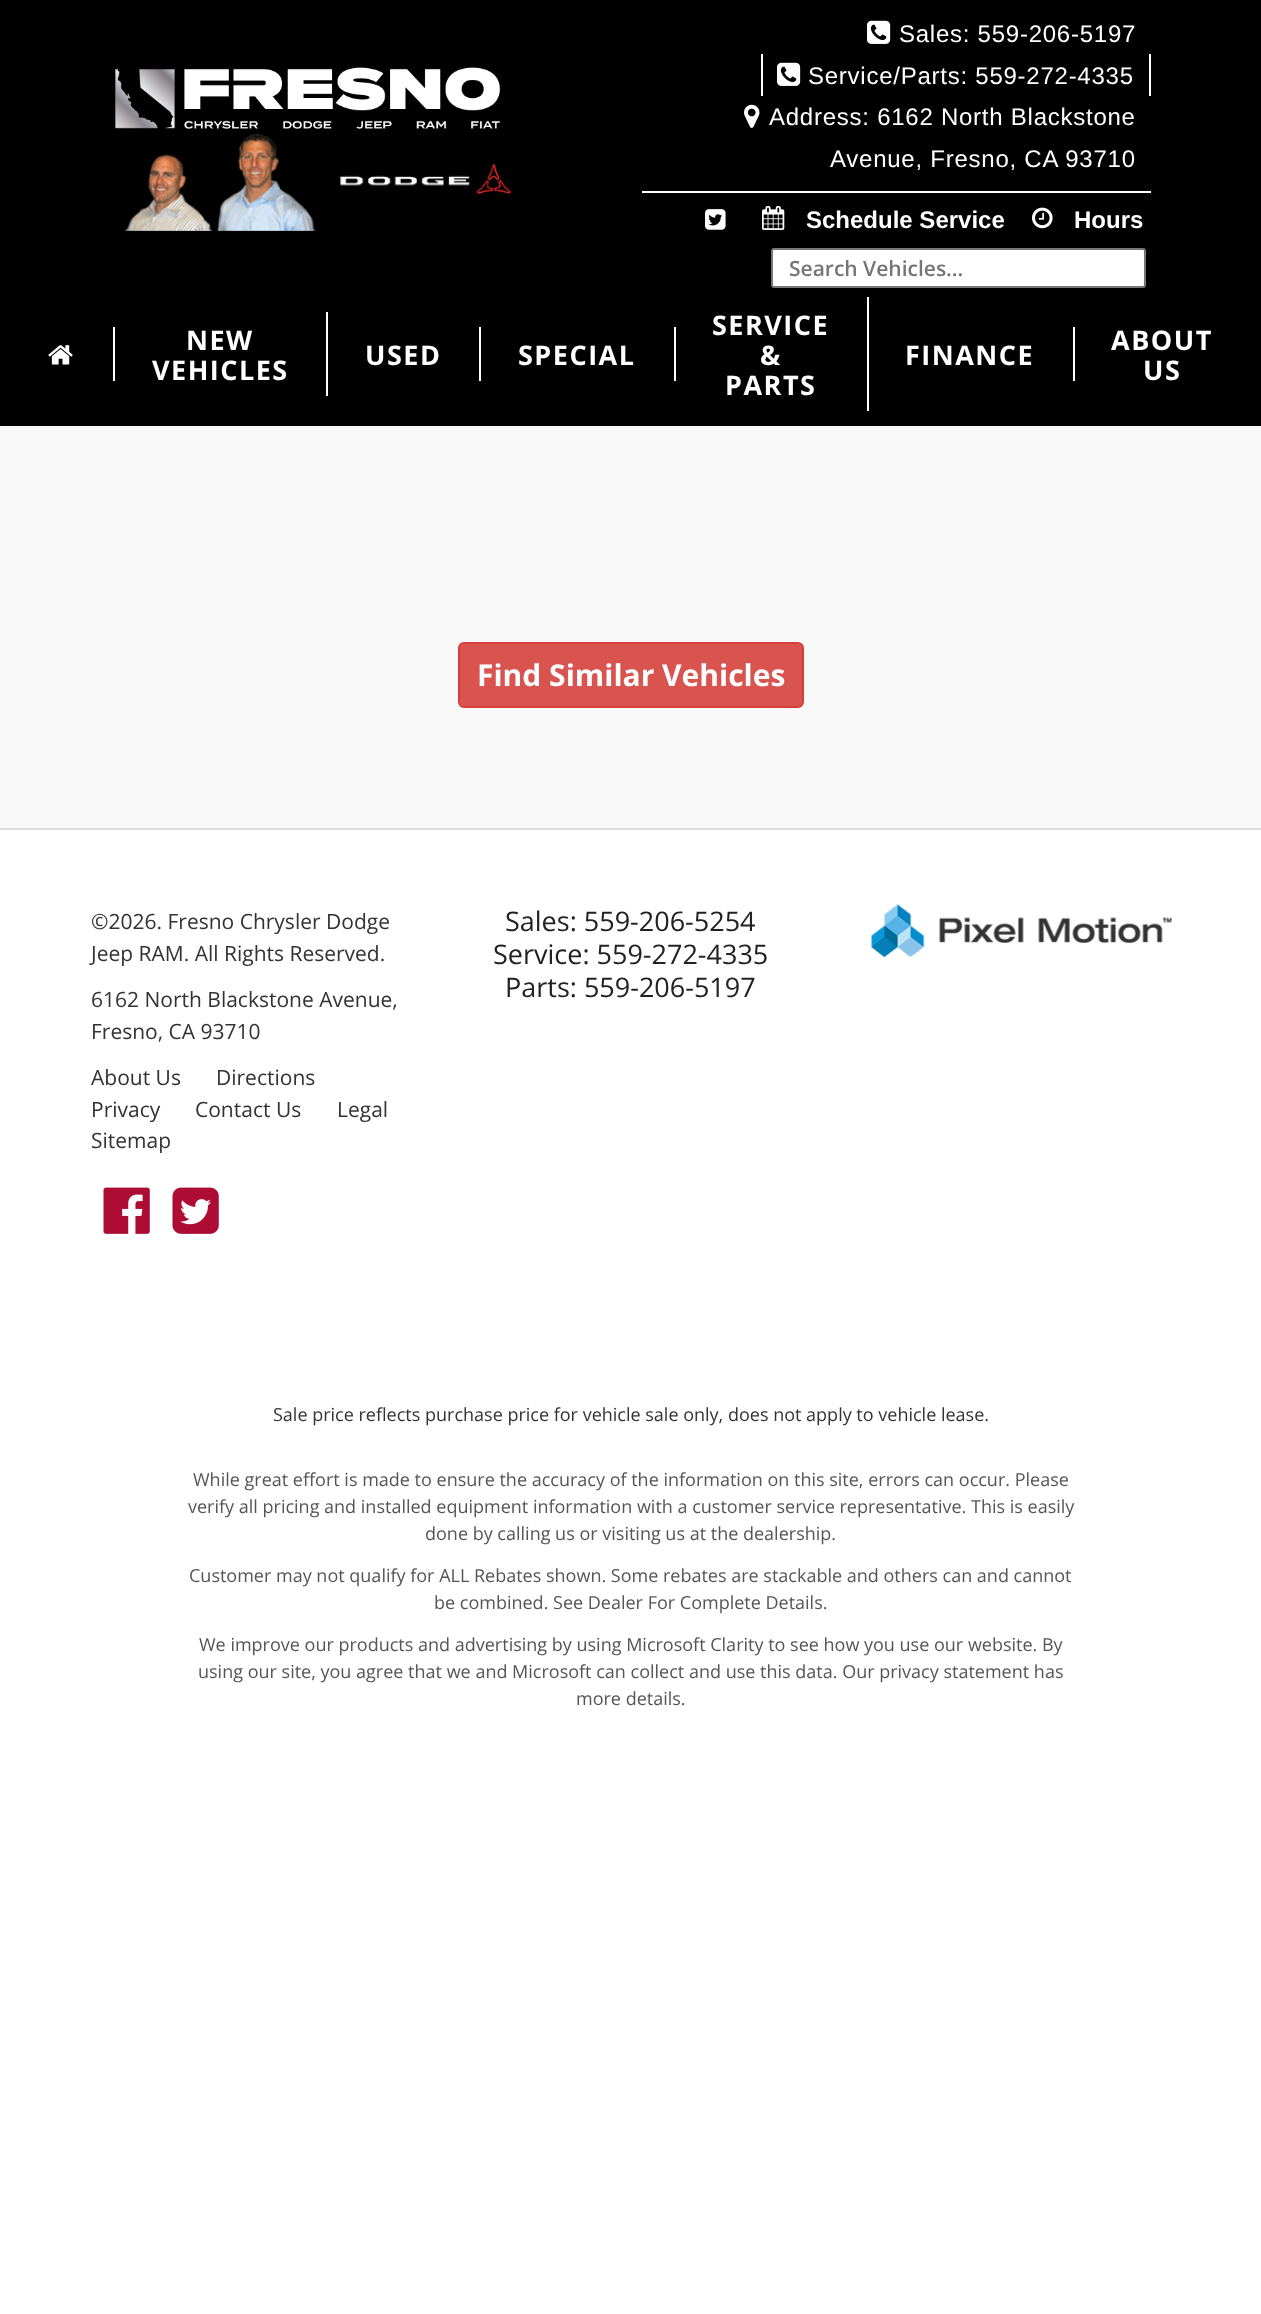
<svg xmlns="http://www.w3.org/2000/svg" width="1261" height="2314">
<style>
.a{font:24px Liberation Sans;letter-spacing:0.75px;fill:#fff}
.b{font:bold 24px Liberation Sans;fill:#fff}
.c{font:600 21px Open Sans;fill:#757575}
.d{font:bold 27px Open Sans;letter-spacing:1.5px;fill:#fff}
.e{font:bold 30px Open Sans;fill:#fff}
.f{font:21px Open Sans;fill:#333}
.g{font:27px Open Sans;fill:#222}
.h{font:18px Open Sans;fill:#333}
.i{font:18px Open Sans;fill:#555}
</style>
<rect width="100%" height="100%" fill="#fff"/>
<path fill="#000" d="M0 0h1261v426H0z"/>
<image href="1.png" x="115" y="67" width="386" height="62"/>
<image href="2.png" x="125" y="133" width="191" height="98"/>
<image href="3.png" x="340" y="164" width="171" height="30"/>
<path fill="#fff" d="M642 191h509v2H642z"/>
<image href="4.png" x="867" y="20" width="24" height="24"/>
<path fill="#fff" d="M1149 54h2v42H1149z"/>
<path fill="#fff" d="M761 54h2v42H761z"/>
<image href="4.png" x="777" y="62" width="24" height="24"/>
<image href="5.png" x="744" y="104" width="16" height="24"/>
<image href="6.png" x="705" y="209" width="21" height="21"/>
<image href="7.png" x="762" y="205" width="23" height="25"/>
<image href="8.png" x="1032" y="207" width="21" height="22"/>
<rect fill="#fff" stroke="#767676" stroke-width="2" x="772" y="249" width="373" height="38" rx="2"/>
<path fill="#fff" d="M113 327h2v54H113z"/>
<image href="9.png" x="48" y="345" width="25" height="20"/>
<path fill="#fff" d="M326 312h2v84H326z"/>
<path fill="#fff" d="M479 327h2v54H479z"/>
<path fill="#fff" d="M674 327h2v54H674z"/>
<path fill="#fff" d="M867 297h2v114H867z"/>
<path fill="#fff" d="M1073 327h2v54H1073z"/>
<path fill="#f8f8f8" d="M0 426h1261v402H0z"/>
<rect fill="#d9534f" stroke="#d43f3a" stroke-width="2" x="459" y="643" width="344" height="64" rx="5"/>
<path fill="#ddd" d="M0 828h1261v2H0z"/>
<image href="10.png" x="103" y="1187" width="47" height="47"/>
<image href="11.png" x="172" y="1187" width="47" height="47"/>
<image href="12.png" x="871" y="904" width="301" height="53"/>
<text class="a" x="899" y="42">Sales: 559-206-5197</text>
<text class="a" x="808" y="84">Service/Parts: 559-272-4335</text>
<text class="a" x="769" y="125">Address: 6162 North Blackstone</text>
<text class="a" x="830" y="167">Avenue, Fresno, CA 93710</text>
<text class="b" x="806" y="228">Schedule Service</text>
<text class="b" x="1074" y="228">Hours</text>
<text class="c" x="789" y="276">Search Vehicles...</text>
<text class="d" x="186" y="350">NEW</text>
<text class="d" x="152" y="380">VEHICLES</text>
<text class="d" x="365" y="365">USED</text>
<text class="d" x="518" y="365">SPECIAL</text>
<text class="d" x="712" y="335">SERVICE</text>
<text class="d" x="760" y="365">&amp;</text>
<text class="d" x="725" y="395">PARTS</text>
<text class="d" x="905" y="365">FINANCE</text>
<text class="d" x="1111" y="350">ABOUT</text>
<text class="d" x="1143" y="380">US</text>
<text class="e" x="477" y="686">Find Similar Vehicles</text>
<text class="f" x="91" y="929">©2026. Fresno Chrysler Dodge</text>
<text class="f" x="91" y="961">Jeep RAM. All Rights Reserved.</text>
<text class="f" x="91" y="1007">6162 North Blackstone Avenue,</text>
<text class="f" x="91" y="1039">Fresno, CA 93710</text>
<text class="f" x="91" y="1085">About Us</text>
<text class="f" x="216" y="1085">Directions</text>
<text class="f" x="91" y="1117">Privacy</text>
<text class="f" x="195" y="1117">Contact Us</text>
<text class="f" x="337" y="1117">Legal</text>
<text class="f" x="91" y="1148">Sitemap</text>
<text class="g" x="505" y="931">Sales: 559-206-5254</text>
<text class="g" x="493" y="964">Service: 559-272-4335</text>
<text class="g" x="505" y="997">Parts: 559-206-5197</text>
<text class="h" x="273" y="1421">Sale price reflects purchase price for vehicle sale only, does not apply to vehicle lease.</text>
<text class="i" x="193" y="1486">While great effort is made to ensure the accuracy of the information on this site, errors can occur. Please</text>
<text class="i" x="188" y="1513">verify all pricing and installed equipment information with a customer service representative. This is easily</text>
<text class="i" x="425" y="1540">done by calling us or visiting us at the dealership.</text>
<text class="i" x="189" y="1582">Customer may not qualify for ALL Rebates shown. Some rebates are stackable and others can and cannot</text>
<text class="i" x="434" y="1609">be combined. See Dealer For Complete Details.</text>
<text class="i" x="199" y="1651">We improve our products and advertising by using Microsoft Clarity to see how you use our website. By</text>
<text class="i" x="198" y="1678">using our site, you agree that we and Microsoft can collect and use this data. Our privacy statement has</text>
<text class="i" x="576" y="1705">more details.</text>
</svg>
